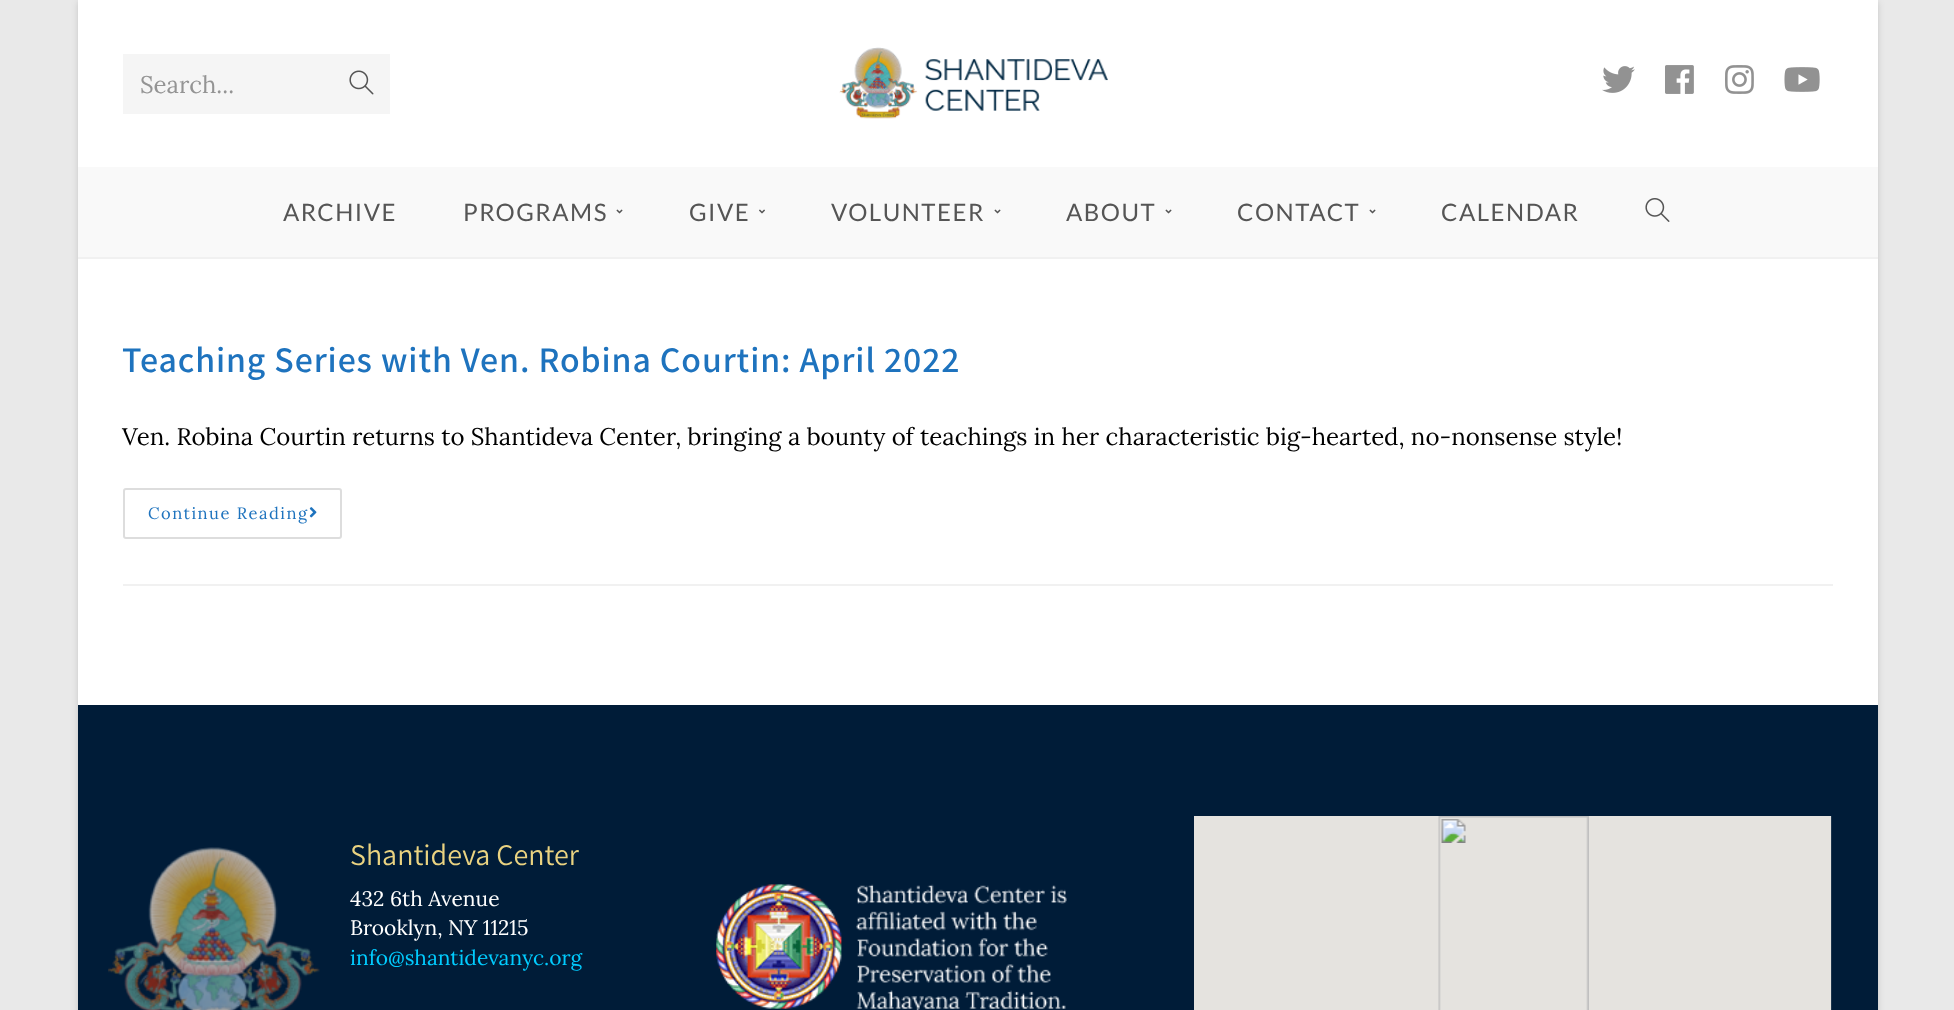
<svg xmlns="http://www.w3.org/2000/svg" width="1954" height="1010">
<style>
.a{font:24px Lora;fill:#949494}
.b{font:24px Lato;letter-spacing:1.5px;fill:#555}
.c{font:600 36px Assistant;letter-spacing:0.9px;fill:#1e73be}
.d{font:24px Lora;fill:#000}
.e{font:16.5px Lora;letter-spacing:1.5px;fill:#1e73be}
.f{font:30px Assistant;fill:#ead381}
.g{font:21px Lora;fill:#fff}
.h{font:21px Lora;fill:#0cf}
</style>
<rect width="100%" height="100%" fill="#e9e9e9"/>
<path fill="#00000026" filter="blur(3px)" d="M78 2h1800v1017H78z"/>
<path fill="#fff" d="M78 0h1800v705H78z"/>
<path fill="#f1f1f1" d="M78 257h1800v2H78z"/>
<path fill="#f5f5f5" d="M123 54h267v60H123z"/>
<image href="1.png" x="349" y="70" width="25" height="25"/>
<image href="2.png" x="839" y="47" width="269" height="72"/>
<image href="3.png" x="1602" y="66" width="33" height="27"/>
<image href="4.png" x="1665" y="65" width="29" height="29"/>
<image href="5.png" x="1725" y="65" width="29" height="29"/>
<image href="6.png" x="1784" y="67" width="36" height="25"/>
<path fill="#f9f9f9" d="M78 167h1800v90H78z"/>
<image href="7.png" x="616" y="209" width="7" height="5"/>
<image href="8.png" x="759" y="209" width="6" height="5"/>
<image href="7.png" x="994" y="209" width="7" height="5"/>
<image href="7.png" x="1165" y="209" width="7" height="5"/>
<image href="7.png" x="1369" y="209" width="7" height="5"/>
<image href="9.png" x="1645" y="198" width="25" height="24"/>
<path fill="#f1f1f1" d="M123 584h1710v2H123z"/>
<rect fill="none" stroke="#ddd" stroke-width="2" x="124" y="489" width="217" height="49" rx="2"/>
<image href="10.png" x="309" y="507" width="8" height="11"/>
<path fill="#001c38" d="M78 705h1800v305H78z"/>
<image href="11.png" x="108" y="847" width="212" height="163"/>
<image href="12.png" x="716" y="884" width="351" height="126"/>
<image href="13.png" x="1194" y="816" width="638" height="194"/>
<text class="a" x="140" y="93">Search...</text>
<text class="b" x="283" y="221">ARCHIVE</text>
<text class="b" x="463" y="221">PROGRAMS</text>
<text class="b" x="689" y="221">GIVE</text>
<text class="b" x="831" y="221">VOLUNTEER</text>
<text class="b" x="1066" y="221">ABOUT</text>
<text class="b" x="1237" y="221">CONTACT</text>
<text class="b" x="1441" y="221">CALENDAR</text>
<text class="c" x="122" y="372">Teaching Series with Ven. Robina Courtin: April 2022</text>
<text class="d" x="122" y="445">Ven. Robina Courtin returns to Shantideva Center, bringing a bounty of teachings in her characteristic big-hearted, no-nonsense style!</text>
<text class="e" x="148" y="519">Continue Reading</text>
<text class="f" x="350" y="865">Shantideva Center</text>
<text class="g" x="350" y="906">432 6th Avenue</text>
<text class="g" x="350" y="935">Brooklyn, NY 11215</text>
<text class="h" x="350" y="965">info@shantidevanyc.org</text>
</svg>
